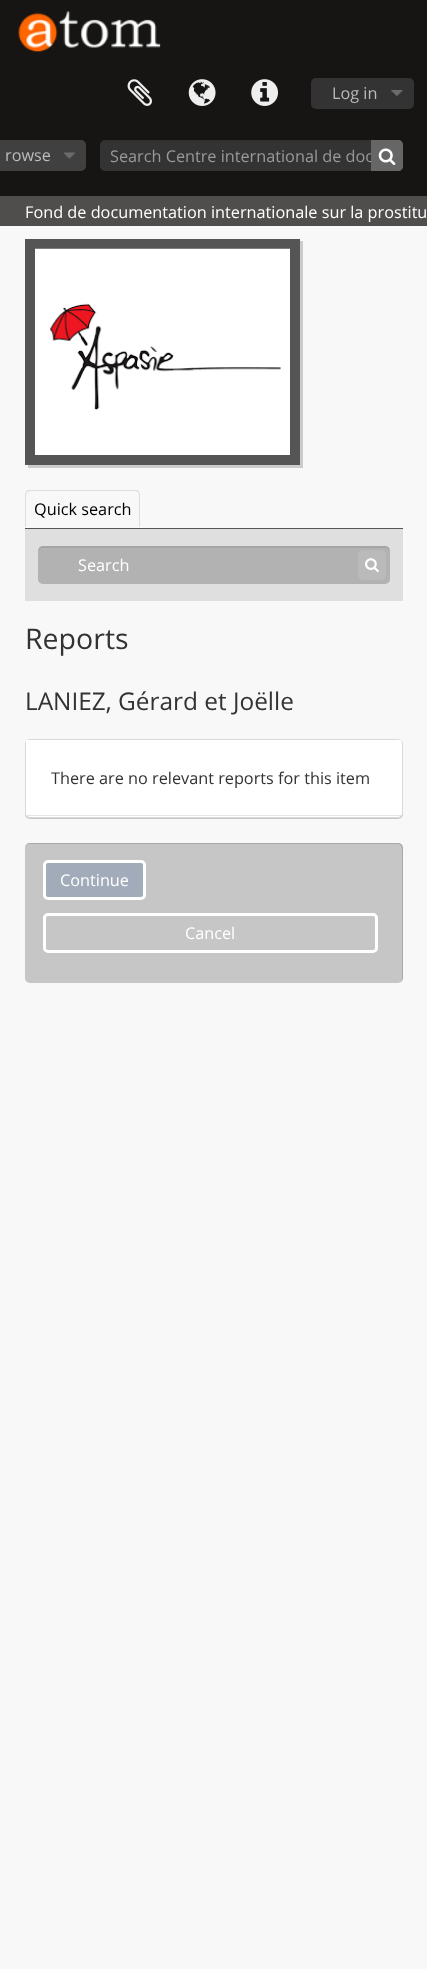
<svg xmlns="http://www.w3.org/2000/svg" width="427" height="1969">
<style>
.a{font:16.25px Open Sans;fill:#bbb}
.b{font:16.25px Open Sans;fill:#999}
.c{font:16.25px Open Sans;fill:#fff}
.d{font:16.25px Open Sans;fill:#000}
.e{font:28.5px Open Sans;fill:#333}
.f{font:24.4px Open Sans;fill:#333}
.g{font:16.25px Open Sans;fill:#333}
</style>
<rect width="100%" height="100%" fill="#f8f8f8"/>
<path fill="#161514" d="M0 0h427v196H0z"/>
<image href="1.png" x="17" y="11" width="144" height="41"/>
<image href="2.png" x="127" y="79" width="25" height="27"/>
<image href="3.png" x="188" y="79" width="28" height="27"/>
<image href="4.png" x="251" y="79" width="27" height="27"/>
<rect fill="#333" x="311" y="78" width="103" height="31" rx="5"/>
<image href="5.png" x="391" y="90" width="12" height="7"/>
<rect fill="#404040" x="-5" y="140" width="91" height="31" rx="5"/>
<image href="6.png" x="63" y="152" width="13" height="7"/>
<rect fill="#333" x="100" y="140" width="303" height="31" rx="5"/>
<path fill="#00000012" d="M105 141h293c5 0 4 9 4 12v16c1-1 1-2 1-3v-21c0-3-2-5-5-5h-293c-3 0-5 2-5 5v1c0-3 2-5 5-5z"/>
<path fill="#4f4e4d" d="M0 196h427v30H0z"/>
<path fill="#19191933" filter="blur(0.5px)" d="M28 241h275v227H28z"/>
<path fill="#555" d="M25 239h275v226H25z"/>
<image href="8.png" x="35" y="248" width="255" height="207"/>
<path fill="#555" d="M25 528h378v1H25z"/>
<path fill="#ddd" d="M30 490c-2 0-3 0-4 1l1 1l3-1h105l3 1l1-1c-1-1-3-1-4-1z"/>
<path fill="#ddd" d="M140 527.5v-32.5c0-1.5-.5-3-1.5-3.5l-.5 .5c.5 1 1 2 1 3v31h-.5z"/>
<path fill="#ddd" d="M25 527.5l1.5-1.5h-.5v-31c0-1 .5-2 1-3l-.5-.5c-1 .5-1.5 2-1.5 3.5z"/>
<path fill="#dfdfdf" d="M25 529h378v72H25z"/>
<rect fill="#b2b2b2" x="38" y="546" width="352" height="38" rx="5"/>
<path fill="#00000012" d="M42 548h343c3 0 5 2 5 4v-1c0-3-2-5-5-5h-342c-3 0-5 2-5 5v1c0-2 2-4 4-4z"/>
<rect fill="#bababa" x="358" y="550" width="28" height="30" rx="5"/>
<image href="9.png" x="365" y="558" width="14" height="15"/>
<rect fill="#00000033" filter="blur(0.5px)" x="25" y="740" width="378" height="79" rx="5"/>
<rect fill="#fff" stroke="#d9d9d9" x="25.5" y="739.5" width="377" height="78" rx="4.5"/>
<path fill="#fff" d="M26 740h375v75H26z"/>
<path fill="#e5e5e5" d="M26 815h375v1H26z"/>
<rect fill="#c6c6c6" x="25" y="843" width="378" height="140" rx="5"/>
<path fill="#00000026" d="M30 844h368c2 0 4 2 4 5v130l-1 3c1-1 2-3 2-4v-130c0-3-2-5-5-5h-368c-3 0-5 2-5 5v1c0-3 2-5 5-5z"/>
<rect fill="#a1abba" stroke="#fff" stroke-width="3" x="44.5" y="861.5" width="100" height="37" rx="3.5"/>
<rect fill="none" stroke="#fff" stroke-width="3" x="44.5" y="914.5" width="332" height="37" rx="3.5"/>
<text class="a" x="332" y="99">Log in</text>
<text class="a" x="5" y="161">rowse</text>
<text class="b" x="110" y="162">Search Centre international de doc</text>
<path fill="#666" d="M371 140h27c3 0 5 2 5 5v21c0 3-2 5-5 5h-27z"/>
<image href="7.png" x="378" y="148" width="18" height="17"/>
<text class="c" x="25" y="218">Fond de documentation internationale sur la prostitu</text>
<text class="d" x="34" y="515">Quick search</text>
<text class="c" x="78" y="571">Search</text>
<text class="e" x="25" y="649">Reports</text>
<text class="f" x="25" y="710">LANIEZ, Gérard et Joëlle</text>
<text class="g" x="51" y="784">There are no relevant reports for this item</text>
<text class="c" x="60" y="886">Continue</text>
<text class="c" x="185" y="939">Cancel</text>
</svg>
